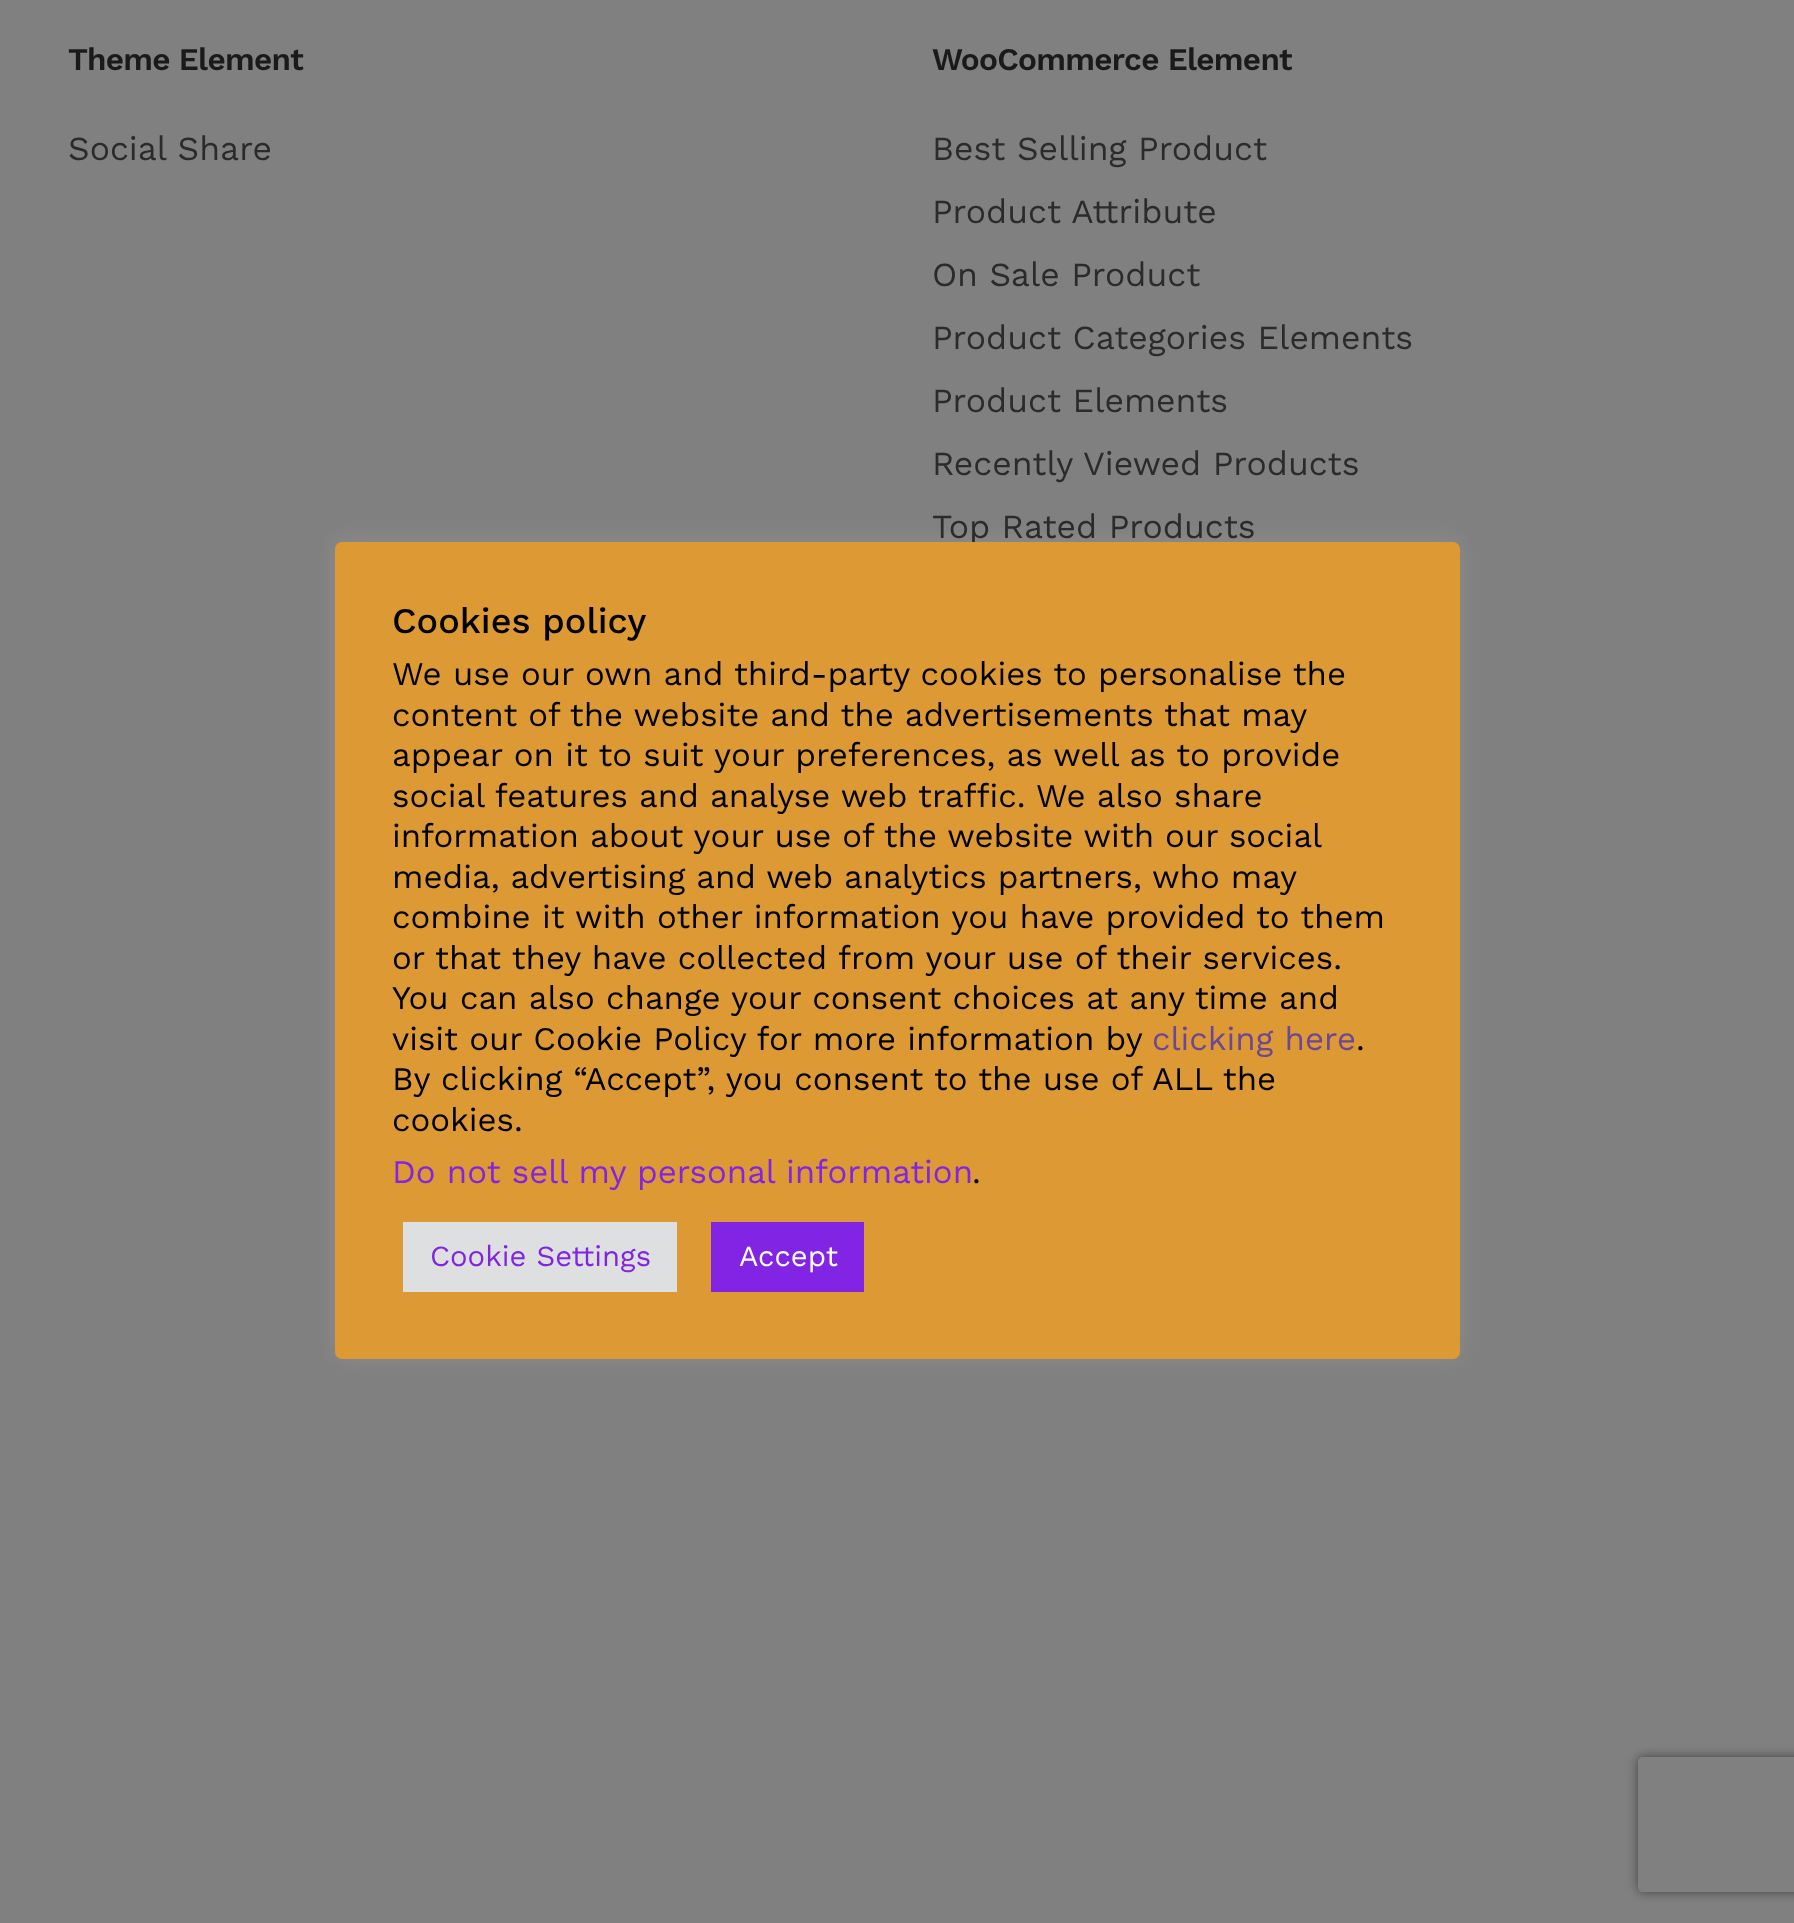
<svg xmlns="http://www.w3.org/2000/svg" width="1794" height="1923">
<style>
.a{font:600 31.5px Work Sans;letter-spacing:-0.7px;fill:#1a1a1a}
.b{font:33.75px Work Sans;fill:#2b2b2b}
.c{font:500 36px Work Sans;fill:#000}
.d{font:33px Work Sans;fill:#000}
.e{font:33px Work Sans;fill:#6c4796}
.f{font:33px Work Sans;fill:#8224e3}
.g{font:29.25px Work Sans;fill:#8224e3}
.h{font:29.25px Work Sans;fill:#fff}
</style>
<defs>
<clipPath id="clip1"><path d="M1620 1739h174v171h-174zm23 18h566c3 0 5 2 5 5v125c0 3-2 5-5 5h-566c-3 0-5-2-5-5v-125c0-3 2-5 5-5z" clip-rule="evenodd"/></clipPath>
</defs>
<rect width="100%" height="100%" fill="#808080"/>
<rect fill="#acabab4d" filter="blur(11px)" x="335" y="540" width="1125" height="817" rx="7"/>
<g clip-path="url(#clip1)">
<rect fill="#404040" filter="blur(5.5px)" x="1638" y="1757" width="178" height="135" rx="5"/>
</g>
<text class="a" x="68" y="70">Theme Element</text>
<text class="b" x="68" y="160">Social Share</text>
<text class="a" x="932" y="70">WooCommerce Element</text>
<text class="b" x="932" y="160">Best Selling Product</text>
<text class="b" x="932" y="223">Product Attribute</text>
<text class="b" x="932" y="286">On Sale Product</text>
<text class="b" x="932" y="349">Product Categories Elements</text>
<text class="b" x="932" y="412">Product Elements</text>
<text class="b" x="932" y="475">Recently Viewed Products</text>
<text class="b" x="932" y="538">Top Rated Products</text>
<rect fill="#d93" x="335" y="542" width="1125" height="817" rx="7"/>
<text class="c" x="392" y="633">Cookies policy</text>
<text class="d" x="392" y="685">We use our own and third-party cookies to personalise the</text>
<text class="d" x="392" y="726" word-spacing="-0.25">content of the website and the advertisements that may</text>
<text class="d" x="392" y="766">appear on it to suit your preferences, as well as to provide</text>
<text class="d" x="392" y="807">social features and analyse web traffic. We also share</text>
<text class="d" x="392" y="847" word-spacing="-0.25">information about your use of the website with our social</text>
<text class="d" x="392" y="888" word-spacing="-0.25">media, advertising and web analytics partners, who may</text>
<text class="d" x="392" y="928">combine it with other information you have provided to them</text>
<text class="d" x="392" y="969">or that they have collected from your use of their services.</text>
<text class="d" x="392" y="1009">You can also change your consent choices at any time and</text>
<text class="d" x="392" y="1050">visit our Cookie Policy for more information by</text>
<text class="e" x="1152" y="1050">clicking here</text>
<text class="d" x="1356" y="1050">.</text>
<text class="d" x="392" y="1090">By clicking “Accept”, you consent to the use of ALL the</text>
<text class="d" x="392" y="1131">cookies.</text>
<text class="f" x="392" y="1183">Do not sell my personal information</text>
<text class="d" x="972" y="1183">.</text>
<path fill="#dedfe0" d="M403 1222h274v70H403z"/>
<text class="g" x="430" y="1266">Cookie Settings</text>
<path fill="#8224e3" d="M711 1222h153v70H711z"/>
<text class="h" x="739" y="1266">Accept</text>
</svg>
